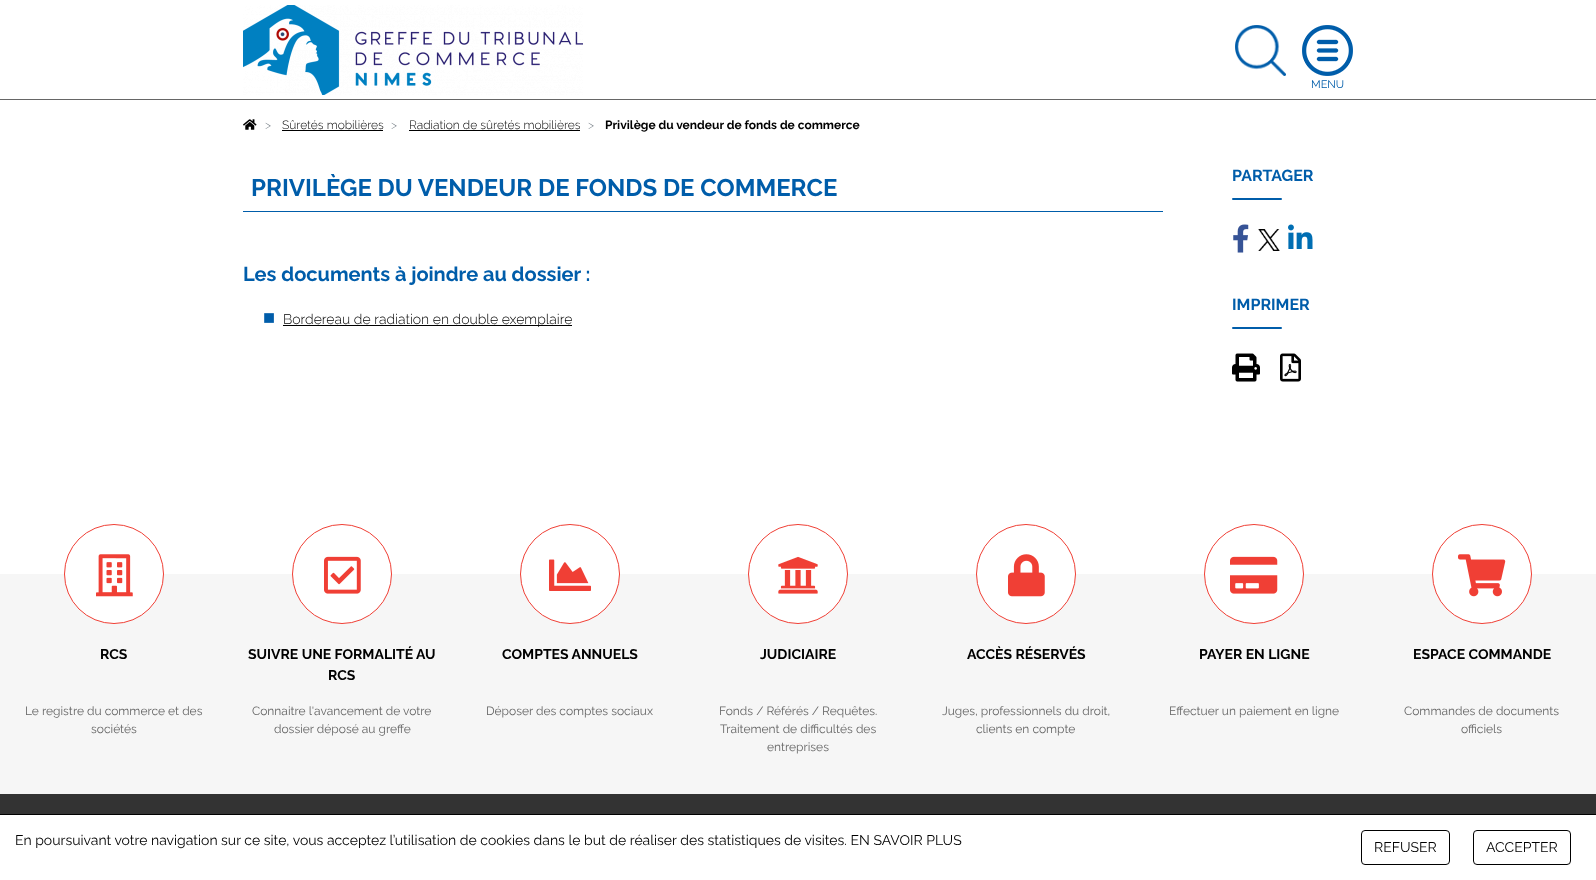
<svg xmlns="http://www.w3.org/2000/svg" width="1596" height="880">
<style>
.a{font:11px Raleway;fill:#005daa}
.b{font:300 12px Raleway;fill:#6c757d}
.c{font:300 12px Raleway;fill:#000}
.d{font:bold 12px Raleway;fill:#000}
.e{font:bold 24px Raleway;fill:#005daa}
.f{font:bold 20px Raleway;fill:#005daa}
.g{font:20px Liberation Sans;fill:#005daa}
.h{font:300 14px Raleway;fill:#000}
.i{font:bold 16px Raleway;fill:#005daa}
.j{font:bold 14px Raleway;fill:#000}
.k{font:12px Raleway;fill:#666}
.l{font:14px Raleway;fill:#000}
</style>
<rect width="100%" height="100%" fill="#fff"/>
<path fill="#666" d="M0 99h1596v1H0z"/>
<image href="1.png" x="243" y="5" width="340" height="90"/>
<image href="2.png" x="1235" y="25" width="51" height="51"/>
<image href="3.png" x="1302" y="25" width="51" height="51"/>
<image href="4.png" x="243" y="119" width="14" height="11"/>
<path fill="#000" d="M282 130h101v1H282z"/>
<path fill="#000" d="M409 130h171v1H409z"/>
<path fill="#005daa" d="M243 211h920v1H243z"/>
<path fill="#000" d="M283 325h289v1H283z"/>
<rect fill="#005daa" x="1232" y="198" width="50" height="2" rx="1"/>
<image href="5.png" x="1233" y="224" width="16" height="29"/>
<image href="6.png" x="1258" y="229" width="22" height="22"/>
<image href="7.png" x="1288" y="224" width="25" height="25"/>
<rect fill="#005daa" x="1232" y="327" width="50" height="2" rx="1"/>
<image href="8.png" x="1232" y="353" width="28" height="29"/>
<image href="9.png" x="1280" y="353" width="21" height="29"/>
<path fill="#f6f6f6" d="M0 574h1596v220H0z"/>
<circle fill="#fff" stroke="#f03f35" cx="114" cy="574" r="49.5"/>
<image href="10.png" x="96" y="554" width="37" height="43"/>
<circle fill="#fff" stroke="#f03f35" cx="342" cy="574" r="49.5"/>
<image href="11.png" x="324" y="556" width="37" height="38"/>
<circle fill="#fff" stroke="#f03f35" cx="570" cy="574" r="49.5"/>
<image href="12.png" x="549" y="559" width="42" height="32"/>
<circle fill="#fff" stroke="#f03f35" cx="798" cy="574" r="49.5"/>
<image href="13.png" x="778" y="556" width="40" height="38"/>
<circle fill="#fff" stroke="#f03f35" cx="1026" cy="574" r="49.5"/>
<image href="14.png" x="1008" y="554" width="37" height="43"/>
<circle fill="#fff" stroke="#f03f35" cx="1254" cy="574" r="49.5"/>
<image href="15.png" x="1230" y="556" width="48" height="38"/>
<circle fill="#fff" stroke="#f03f35" cx="1482" cy="574" r="49.5"/>
<image href="16.png" x="1458" y="554" width="48" height="43"/>
<path fill="#333" d="M0 794h1596v20H0z"/>
<path fill="#000" d="M0 814h1596v1H0z"/>
<rect fill="none" stroke="#000" x="1361.5" y="830.5" width="88" height="34" rx="3.5"/>
<rect fill="none" stroke="#000" x="1473.5" y="830.5" width="97" height="34" rx="3.5"/>
<text class="a" x="1311" y="88">MENU</text>
<text class="b" x="265" y="129">&gt;</text>
<text class="c" x="282" y="129">Sûretés mobilières</text>
<text class="b" x="391" y="129">&gt;</text>
<text class="c" x="409" y="129">Radiation de sûretés mobilières</text>
<text class="b" x="588" y="129">&gt;</text>
<text class="d" x="605" y="129">Privilège du vendeur de fonds de commerce</text>
<text class="e" x="251" y="196">PRIVILÈGE DU VENDEUR DE FONDS DE COMMERCE</text>
<text class="f" x="243" y="281">Les documents à joindre au dossier :</text>
<text class="g" x="263" y="324">■</text>
<text class="h" x="283" y="324">Bordereau de radiation en double exemplaire</text>
<text class="i" x="1232" y="181">PARTAGER</text>
<text class="i" x="1232" y="310">IMPRIMER</text>
<text class="j" x="100" y="659">RCS</text>
<text class="k" x="25" y="715">Le registre du commerce et des</text>
<text class="k" x="91" y="733">sociétés</text>
<text class="j" x="248" y="659">SUIVRE UNE FORMALITÉ AU</text>
<text class="j" x="328" y="680">RCS</text>
<text class="k" x="252" y="715">Connaitre l'avancement de votre</text>
<text class="k" x="274" y="733">dossier déposé au greffe</text>
<text class="j" x="502" y="659">COMPTES ANNUELS</text>
<text class="k" x="486" y="715">Déposer des comptes sociaux</text>
<text class="j" x="760" y="659">JUDICIAIRE</text>
<text class="k" x="719" y="715">Fonds / Référés / Requêtes.</text>
<text class="k" x="720" y="733">Traitement de difficultés des</text>
<text class="k" x="767" y="751">entreprises</text>
<text class="j" x="967" y="659">ACCÈS RÉSERVÉS</text>
<text class="k" x="942" y="715">Juges, professionnels du droit,</text>
<text class="k" x="976" y="733">clients en compte</text>
<text class="j" x="1199" y="659">PAYER EN LIGNE</text>
<text class="k" x="1169" y="715">Effectuer un paiement en ligne</text>
<text class="j" x="1413" y="659">ESPACE COMMANDE</text>
<text class="k" x="1404" y="715">Commandes de documents</text>
<text class="k" x="1461" y="733">officiels</text>
<text class="l" x="15" y="845">En poursuivant votre navigation sur ce site, vous acceptez l’utilisation de cookies dans le but de réaliser des statistiques de visites. EN SAVOIR PLUS</text>
<text class="l" x="1374" y="852">REFUSER</text>
<text class="l" x="1486" y="852">ACCEPTER</text>
</svg>
